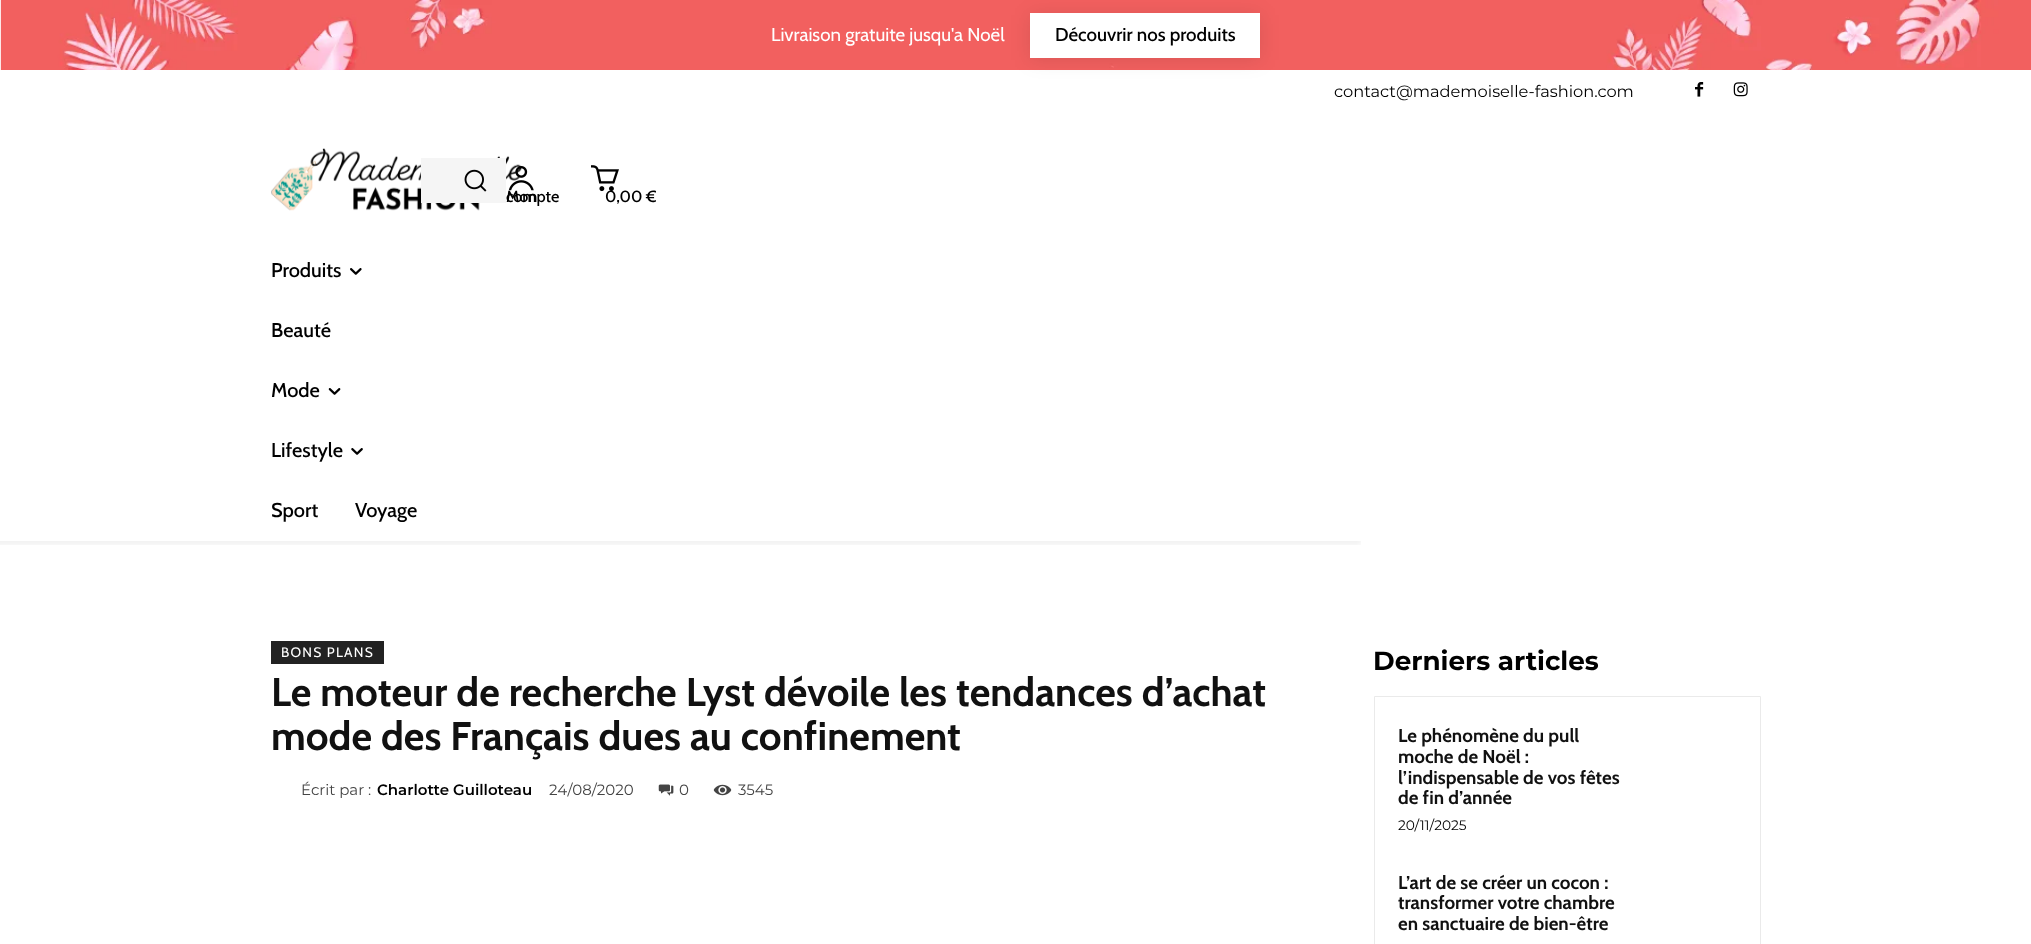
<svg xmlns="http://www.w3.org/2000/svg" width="2031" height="944">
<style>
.a{font:18.75px Cabin;fill:#fff}
.b{font:500 18.75px Cabin;fill:#000}
.c{font:16.25px Montserrat;fill:#000}
.d{font:500 16.25px Cabin;fill:#000}
.e{font:500 20px Cabin;fill:#000}
.f{font:13.75px Cabin;letter-spacing:1.25px;fill:#fff}
.g{font:bold 40px Cabin;fill:#111}
.h{font:15px Montserrat;fill:#444}
.i{font:600 15px Montserrat;fill:#000}
.j{font:bold 26.25px Montserrat;fill:#000}
.k{font:bold 18.75px Cabin;fill:#111}
.l{font:13.75px Montserrat;fill:#000}
</style>
<defs>
<clipPath id="clip1"><path d="M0 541h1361v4H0z"/></clipPath>
</defs>
<rect width="100%" height="100%" fill="#fff"/>
<image href="1.png" x="0" y="0" width="2031" height="70"/>
<path fill="#0000001a" filter="blur(10px)" d="M1030 15h230v45H1030z"/>
<path fill="#fff" d="M1030 13h230v45H1030z"/>
<image href="2.png" x="1695" y="82" width="9" height="15"/>
<image href="3.png" x="1733" y="82" width="15" height="15"/>
<image href="4.png" x="271" y="148" width="251" height="63"/>
<path fill="#f5f5f5" d="M421 158h85v45H421z"/>
<image href="5.png" x="464" y="169" width="23" height="23"/>
<image href="6.png" x="508" y="166" width="26" height="25"/>
<image href="7.png" x="591" y="165" width="28" height="27"/>
<g clip-path="url(#clip1)">
<path fill="#0000000d" filter="blur(2px)" d="M-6 245h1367v300H-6z"/>
</g>
<image href="8.png" x="350" y="268" width="12" height="7"/>
<image href="9.png" x="328" y="388" width="13" height="7"/>
<image href="10.png" x="351" y="448" width="12" height="7"/>
<path fill="#222" d="M271 641h113v23H271z"/>
<image href="11.png" x="658" y="784" width="16" height="12"/>
<image href="12.png" x="713" y="784" width="19" height="12"/>
<path fill="none" stroke="#eaeaea" d="M1374.5 696.5h386v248H1374.5z"/>
<text class="a" x="771" y="41">Livraison gratuite jusqu'a Noël</text>
<text class="b" x="1055" y="41">Découvrir nos produits</text>
<text class="c" x="1334" y="97">contact@mademoiselle-fashion.com</text>
<text class="d" x="506" y="202">Mon</text>
<text class="d" x="506" y="202">compte</text>
<text class="d" x="605" y="202">0,00 €</text>
<text class="e" x="271" y="277">Produits</text>
<text class="e" x="271" y="337">Beauté</text>
<text class="e" x="271" y="397">Mode</text>
<text class="e" x="271" y="457">Lifestyle</text>
<text class="e" x="271" y="517">Sport</text>
<text class="e" x="355" y="517">Voyage</text>
<text class="f" x="281" y="657">BONS PLANS</text>
<text class="g" x="271" y="706">Le moteur de recherche Lyst dévoile les tendances d’achat</text>
<text class="g" x="271" y="750">mode des Français dues au confinement</text>
<text class="h" x="301" y="795">Écrit par :</text>
<text class="i" x="377" y="795">Charlotte Guilloteau</text>
<text class="h" x="549" y="795">24/08/2020</text>
<text class="h" x="679" y="795">0</text>
<text class="h" x="738" y="795">3545</text>
<text class="j" x="1373" y="670">Derniers articles</text>
<text class="k" x="1398" y="742">Le phénomène du pull</text>
<text class="k" x="1398" y="763">moche de Noël :</text>
<text class="k" x="1398" y="784">l’indispensable de vos fêtes</text>
<text class="k" x="1398" y="804">de fin d’année</text>
<text class="l" x="1398" y="830">20/11/2025</text>
<text class="k" x="1398" y="889">L’art de se créer un cocon :</text>
<text class="k" x="1398" y="909">transformer votre chambre</text>
<text class="k" x="1398" y="930">en sanctuaire de bien-être</text>
</svg>
